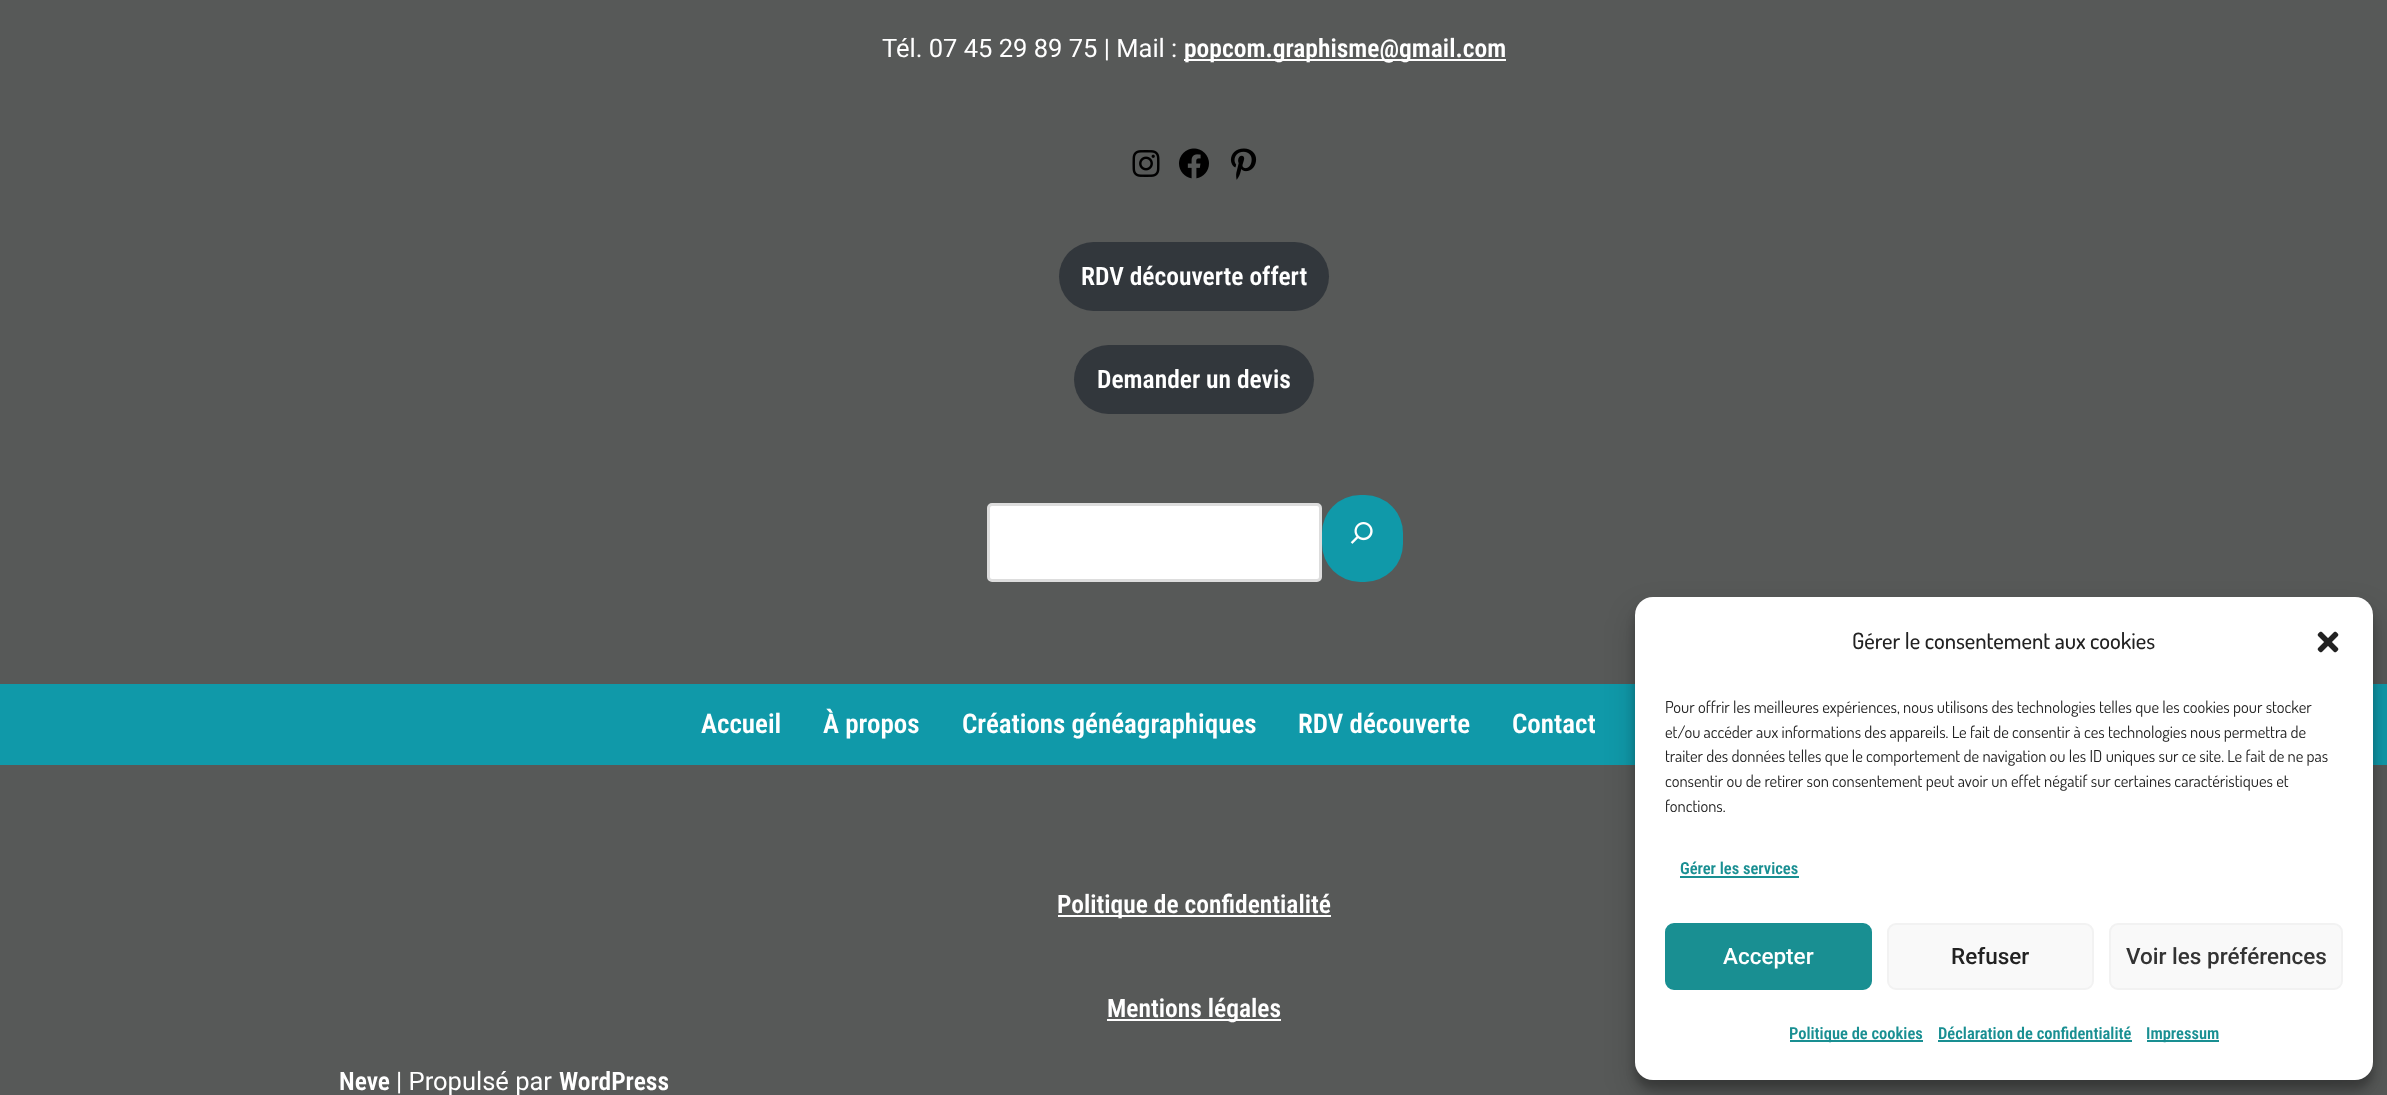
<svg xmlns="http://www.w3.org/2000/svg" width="2387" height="1095">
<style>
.a{font:25.5px Roboto;fill:#fff}
.b{font:600 25.5px Roboto Condensed;fill:#fff}
.c{font:600 27px Roboto Condensed;fill:#fff}
.d{font:500 22.5px Dosis;fill:#222}
.e{font:16.5px Dosis;fill:#222}
.f{font:600 16.5px Roboto Condensed;fill:#198f92}
.g{font:500 22.5px Roboto;fill:#fff}
.h{font:500 22.5px Roboto;fill:#222}
.i{font:500 22.5px Roboto;fill:#333}
</style>
<rect width="100%" height="100%" fill="#575958"/>
<path fill="#fff" d="M1184 59h322v2H1184z"/>
<image href="1.png" x="1132" y="150" width="28" height="27"/>
<image href="2.png" x="1179" y="148" width="30" height="31"/>
<image href="3.png" x="1230" y="148" width="27" height="32"/>
<rect fill="#32373c" x="1059" y="242" width="270" height="69" rx="34.5"/>
<rect fill="#32373c" x="1074" y="345" width="240" height="69" rx="34.5"/>
<rect fill="#fff" stroke="#ddd" stroke-width="3" x="988.5" y="504.5" width="332" height="76" rx="3.5"/>
<rect fill="#1099a9" x="1322" y="495" width="81" height="87" rx="38"/>
<image href="4.png" x="1350" y="522" width="23" height="22"/>
<path fill="#1099a9" d="M0 684h2387v81H0z"/>
<path fill="#fff" d="M1058 915h273v2H1058z"/>
<path fill="#fff" d="M1107 1019h174v2H1107z"/>
<rect fill="#0000003b" filter="blur(4.5px)" x="1635" y="606" width="738" height="483" rx="18"/>
<rect fill="#00000030" filter="blur(15px)" x="1635" y="612" width="738" height="483" rx="18"/>
<rect fill="#fff" x="1635" y="597" width="738" height="483" rx="18"/>
<image href="5.png" x="2317" y="631" width="22" height="22"/>
<path fill="#198f92" d="M1680 876h119v2H1680z"/>
<rect fill="#198f92" stroke="#198f92" stroke-width="2" x="1666" y="924" width="205" height="65" rx="8"/>
<rect fill="#f9f9f9" stroke="#f2f2f2" stroke-width="2" x="1888" y="924" width="205" height="65" rx="8"/>
<rect fill="#f9f9f9" stroke="#f2f2f2" stroke-width="2" x="2110" y="924" width="232" height="65" rx="8"/>
<path fill="#198f92" d="M1790 1040h133v2H1790z"/>
<path fill="#198f92" d="M1938 1040h194v2H1938z"/>
<path fill="#198f92" d="M2147 1040h72v2H2147z"/>
<text class="a" x="882" y="57">Tél. 07 45 29 89 75 | Mail :</text>
<text class="b" x="1184" y="57">popcom.graphisme@gmail.com</text>
<text class="b" x="1081" y="285">RDV découverte offert</text>
<text class="b" x="1097" y="388">Demander un devis</text>
<text class="c" x="701" y="733">Accueil</text>
<text class="c" x="823" y="733">À propos</text>
<text class="c" x="962" y="733">Créations généagraphiques</text>
<text class="c" x="1298" y="733">RDV découverte</text>
<text class="c" x="1512" y="733">Contact</text>
<text class="b" x="1057" y="913">Politique de confidentialité</text>
<text class="b" x="1107" y="1017">Mentions légales</text>
<text class="b" x="339" y="1090">Neve</text>
<text class="a" x="396" y="1090">| Propulsé par</text>
<text class="b" x="559" y="1090">WordPress</text>
<text class="d" x="1852" y="649">Gérer le consentement aux cookies</text>
<text class="e" x="1665" y="713">Pour offrir les meilleures expériences, nous utilisons des technologies telles que les cookies pour stocker</text>
<text class="e" x="1665" y="738">et/ou accéder aux informations des appareils. Le fait de consentir à ces technologies nous permettra de</text>
<text class="e" x="1665" y="762">traiter des données telles que le comportement de navigation ou les ID uniques sur ce site. Le fait de ne pas</text>
<text class="e" x="1665" y="787">consentir ou de retirer son consentement peut avoir un effet négatif sur certaines caractéristiques et</text>
<text class="e" x="1665" y="812">fonctions.</text>
<text class="f" x="1680" y="874">Gérer les services</text>
<text class="g" x="1723" y="964">Accepter</text>
<text class="h" x="1951" y="964">Refuser</text>
<text class="i" x="2126" y="964">Voir les préférences</text>
<text class="f" x="1789" y="1039">Politique de cookies</text>
<text class="f" x="1938" y="1039">Déclaration de confidentialité</text>
<text class="f" x="2146" y="1039">Impressum</text>
</svg>
